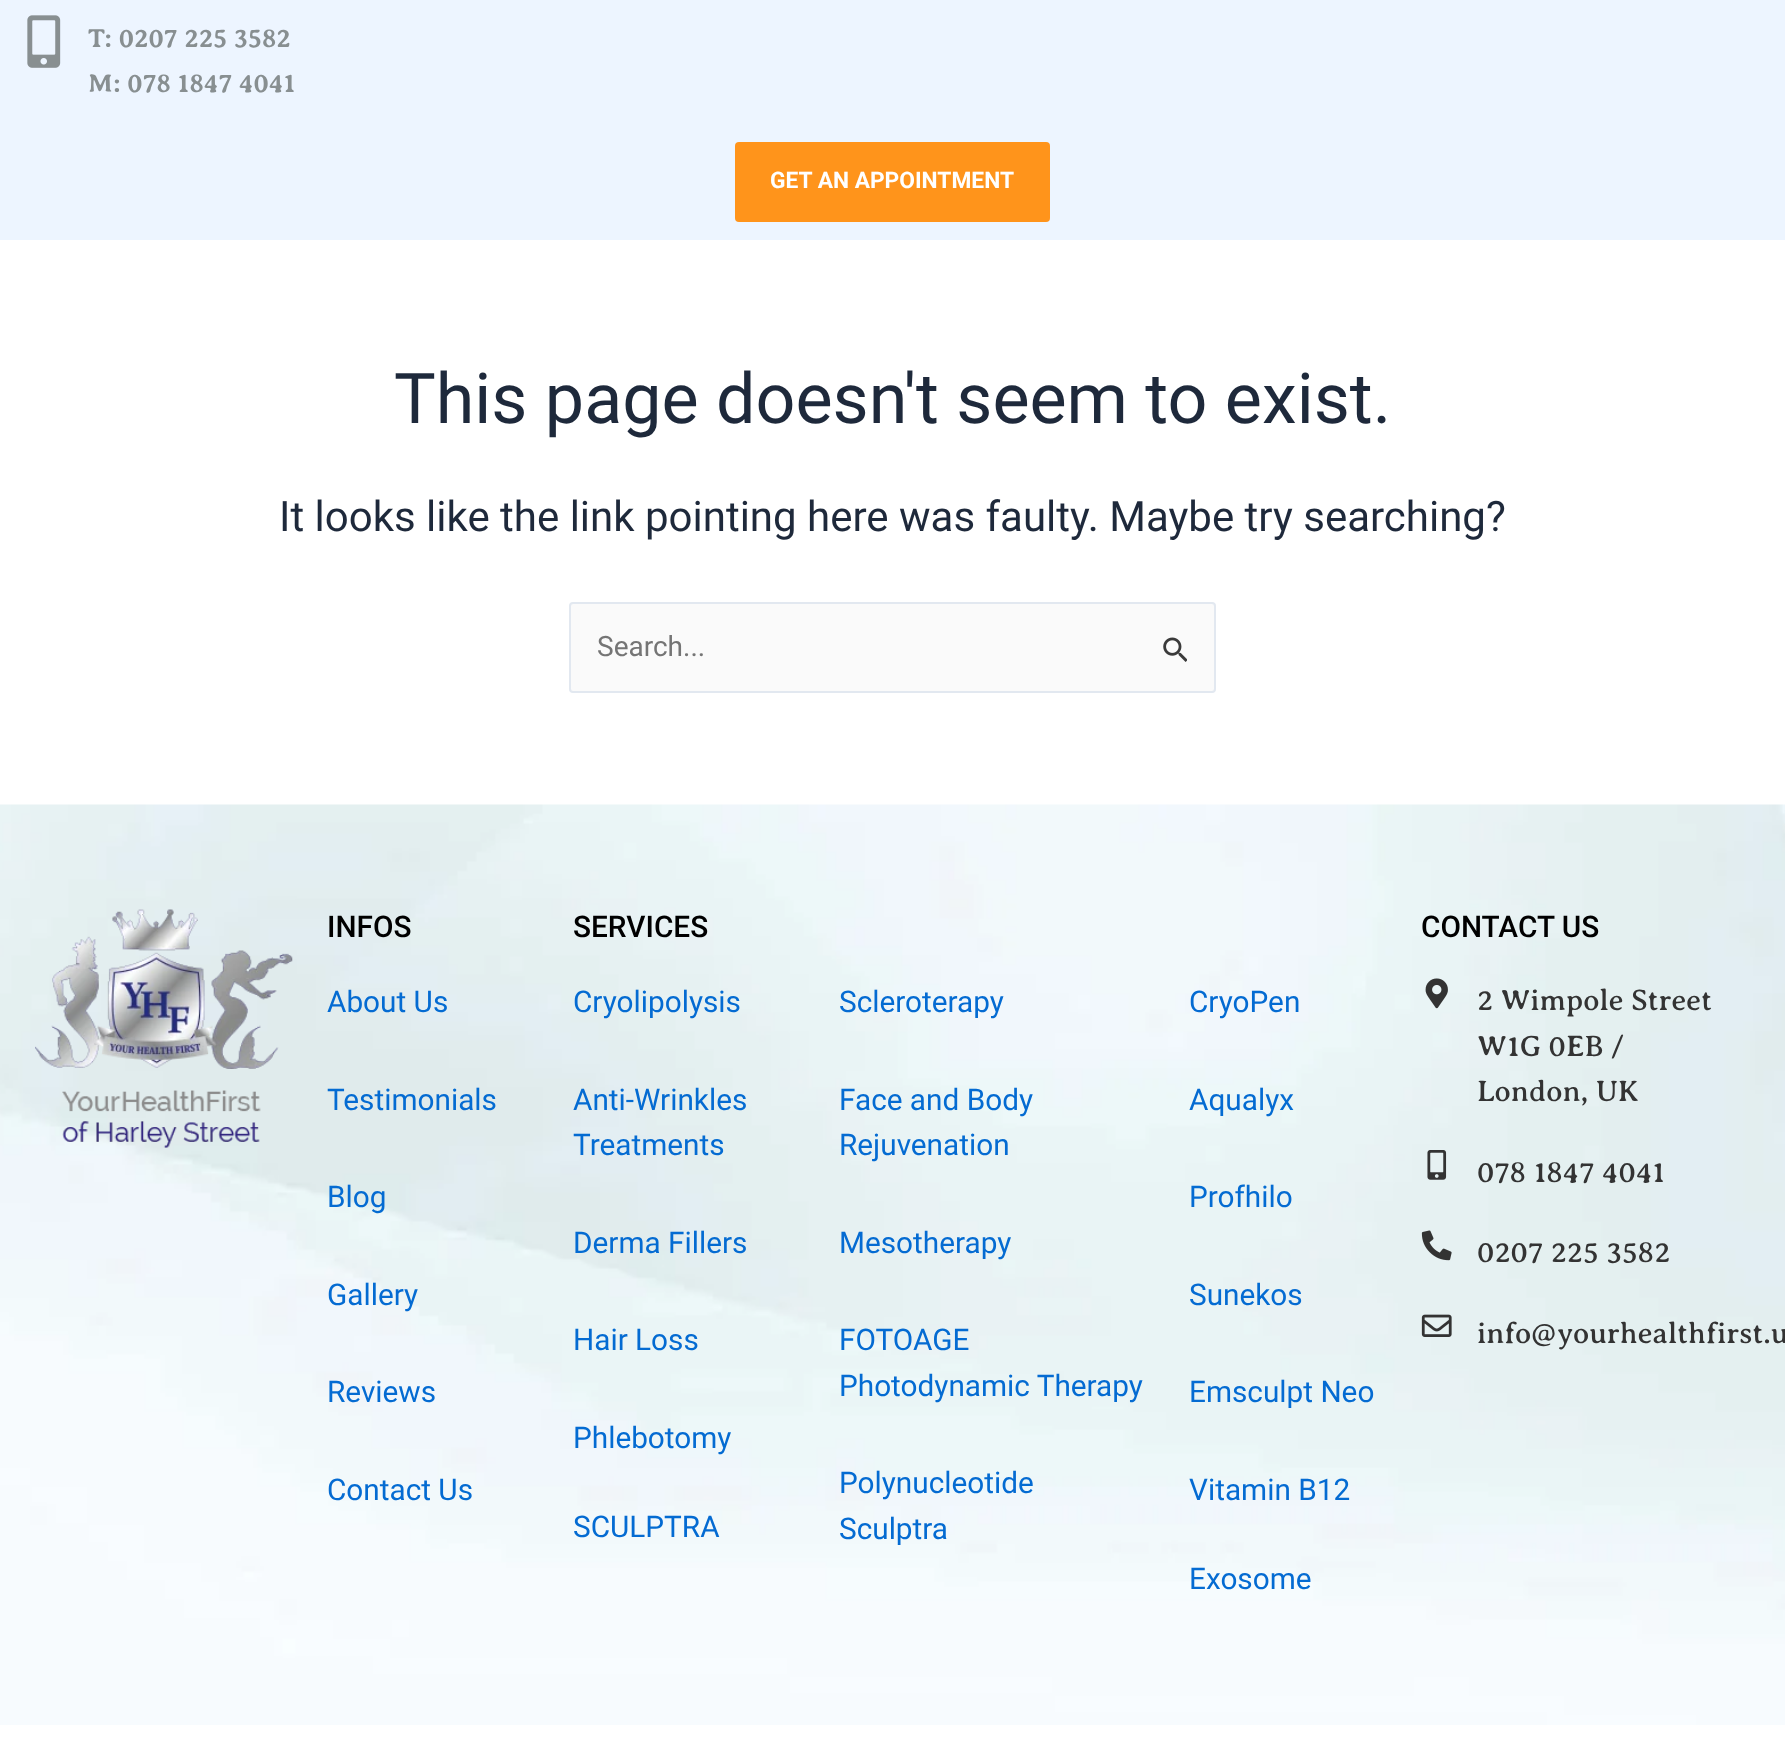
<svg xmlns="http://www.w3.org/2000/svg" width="1785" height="1740">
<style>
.a{font:bold 26.25px Averia Serif Libre;fill:#888f91}
.b{font:bold 22.75px Roboto;fill:#fff}
.c{font:70px Roboto;fill:#1e293b}
.d{font:42px Roboto;fill:#1e293b}
.e{font:28px Roboto;fill:#757575}
.f{font:500 29.75px Roboto;fill:#000}
.g{font:29.75px Roboto;fill:#046bd2}
.h{font:29.75px Averia Serif Libre;fill:#333}
</style>
<rect width="100%" height="100%" fill="#fff"/>
<path fill="#edf5ff" d="M0 0h1785v240H0z"/>
<image href="1.png" x="27" y="15" width="34" height="53"/>
<rect fill="#ff941b" x="735" y="142" width="315" height="80" rx="4"/>
<rect fill="#fafafa" stroke="#e2e8f0" stroke-width="2" x="570" y="603" width="645" height="89" rx="3"/>
<image href="2.png" x="1163" y="637" width="24" height="25"/>
<image href="3.png" x="0" y="804" width="1785" height="921"/>
<image href="4.png" x="35" y="909" width="258" height="239"/>
<image href="5.png" x="1425" y="978" width="23" height="31"/>
<image href="6.png" x="1427" y="1150" width="20" height="30"/>
<image href="7.png" x="1421" y="1230" width="31" height="31"/>
<image href="8.png" x="1421" y="1314" width="31" height="23"/>
<text class="a" x="88" y="47">T: 0207 225 3582</text>
<text class="a" x="88" y="92">M: 078 1847 4041</text>
<text class="b" x="770" y="188">GET AN APPOINTMENT</text>
<text class="c" x="394" y="423">This page doesn't seem to exist.</text>
<text class="d" x="279" y="531">It looks like the link pointing here was faulty. Maybe try searching?</text>
<text class="e" x="597" y="656">Search...</text>
<text class="f" x="327" y="937">INFOS</text>
<text class="g" x="327" y="1012">About Us</text>
<text class="g" x="327" y="1110">Testimonials</text>
<text class="g" x="327" y="1207">Blog</text>
<text class="g" x="327" y="1305">Gallery</text>
<text class="g" x="327" y="1402">Reviews</text>
<text class="g" x="327" y="1500">Contact Us</text>
<text class="f" x="573" y="937">SERVICES</text>
<text class="g" x="573" y="1012">Cryolipolysis</text>
<text class="g" x="573" y="1110">Anti-Wrinkles</text>
<text class="g" x="573" y="1155">Treatments</text>
<text class="g" x="573" y="1253">Derma Fillers</text>
<text class="g" x="573" y="1350">Hair Loss</text>
<text class="g" x="573" y="1448">Phlebotomy</text>
<text class="g" x="573" y="1537">SCULPTRA</text>
<text class="g" x="839" y="1012">Scleroterapy</text>
<text class="g" x="839" y="1110">Face and Body</text>
<text class="g" x="839" y="1155">Rejuvenation</text>
<text class="g" x="839" y="1253">Mesotherapy</text>
<text class="g" x="839" y="1350">FOTOAGE</text>
<text class="g" x="839" y="1396">Photodynamic Therapy</text>
<text class="g" x="839" y="1493">Polynucleotide</text>
<text class="g" x="839" y="1539">Sculptra</text>
<text class="g" x="1189" y="1012">CryoPen</text>
<text class="g" x="1189" y="1110">Aqualyx</text>
<text class="g" x="1189" y="1207">Profhilo</text>
<text class="g" x="1189" y="1305">Sunekos</text>
<text class="g" x="1189" y="1402">Emsculpt Neo</text>
<text class="g" x="1189" y="1500">Vitamin B12</text>
<text class="g" x="1189" y="1589">Exosome</text>
<text class="f" x="1421" y="937">CONTACT US</text>
<text class="h" x="1477" y="1010">2 Wimpole Street</text>
<text class="h" x="1477" y="1056">W1G 0EB /</text>
<text class="h" x="1477" y="1101">London, UK</text>
<text class="h" x="1477" y="1182">078 1847 4041</text>
<text class="h" x="1477" y="1262">0207 225 3582</text>
<text class="h" x="1477" y="1343">info@yourhealthfirst.u</text>
</svg>
